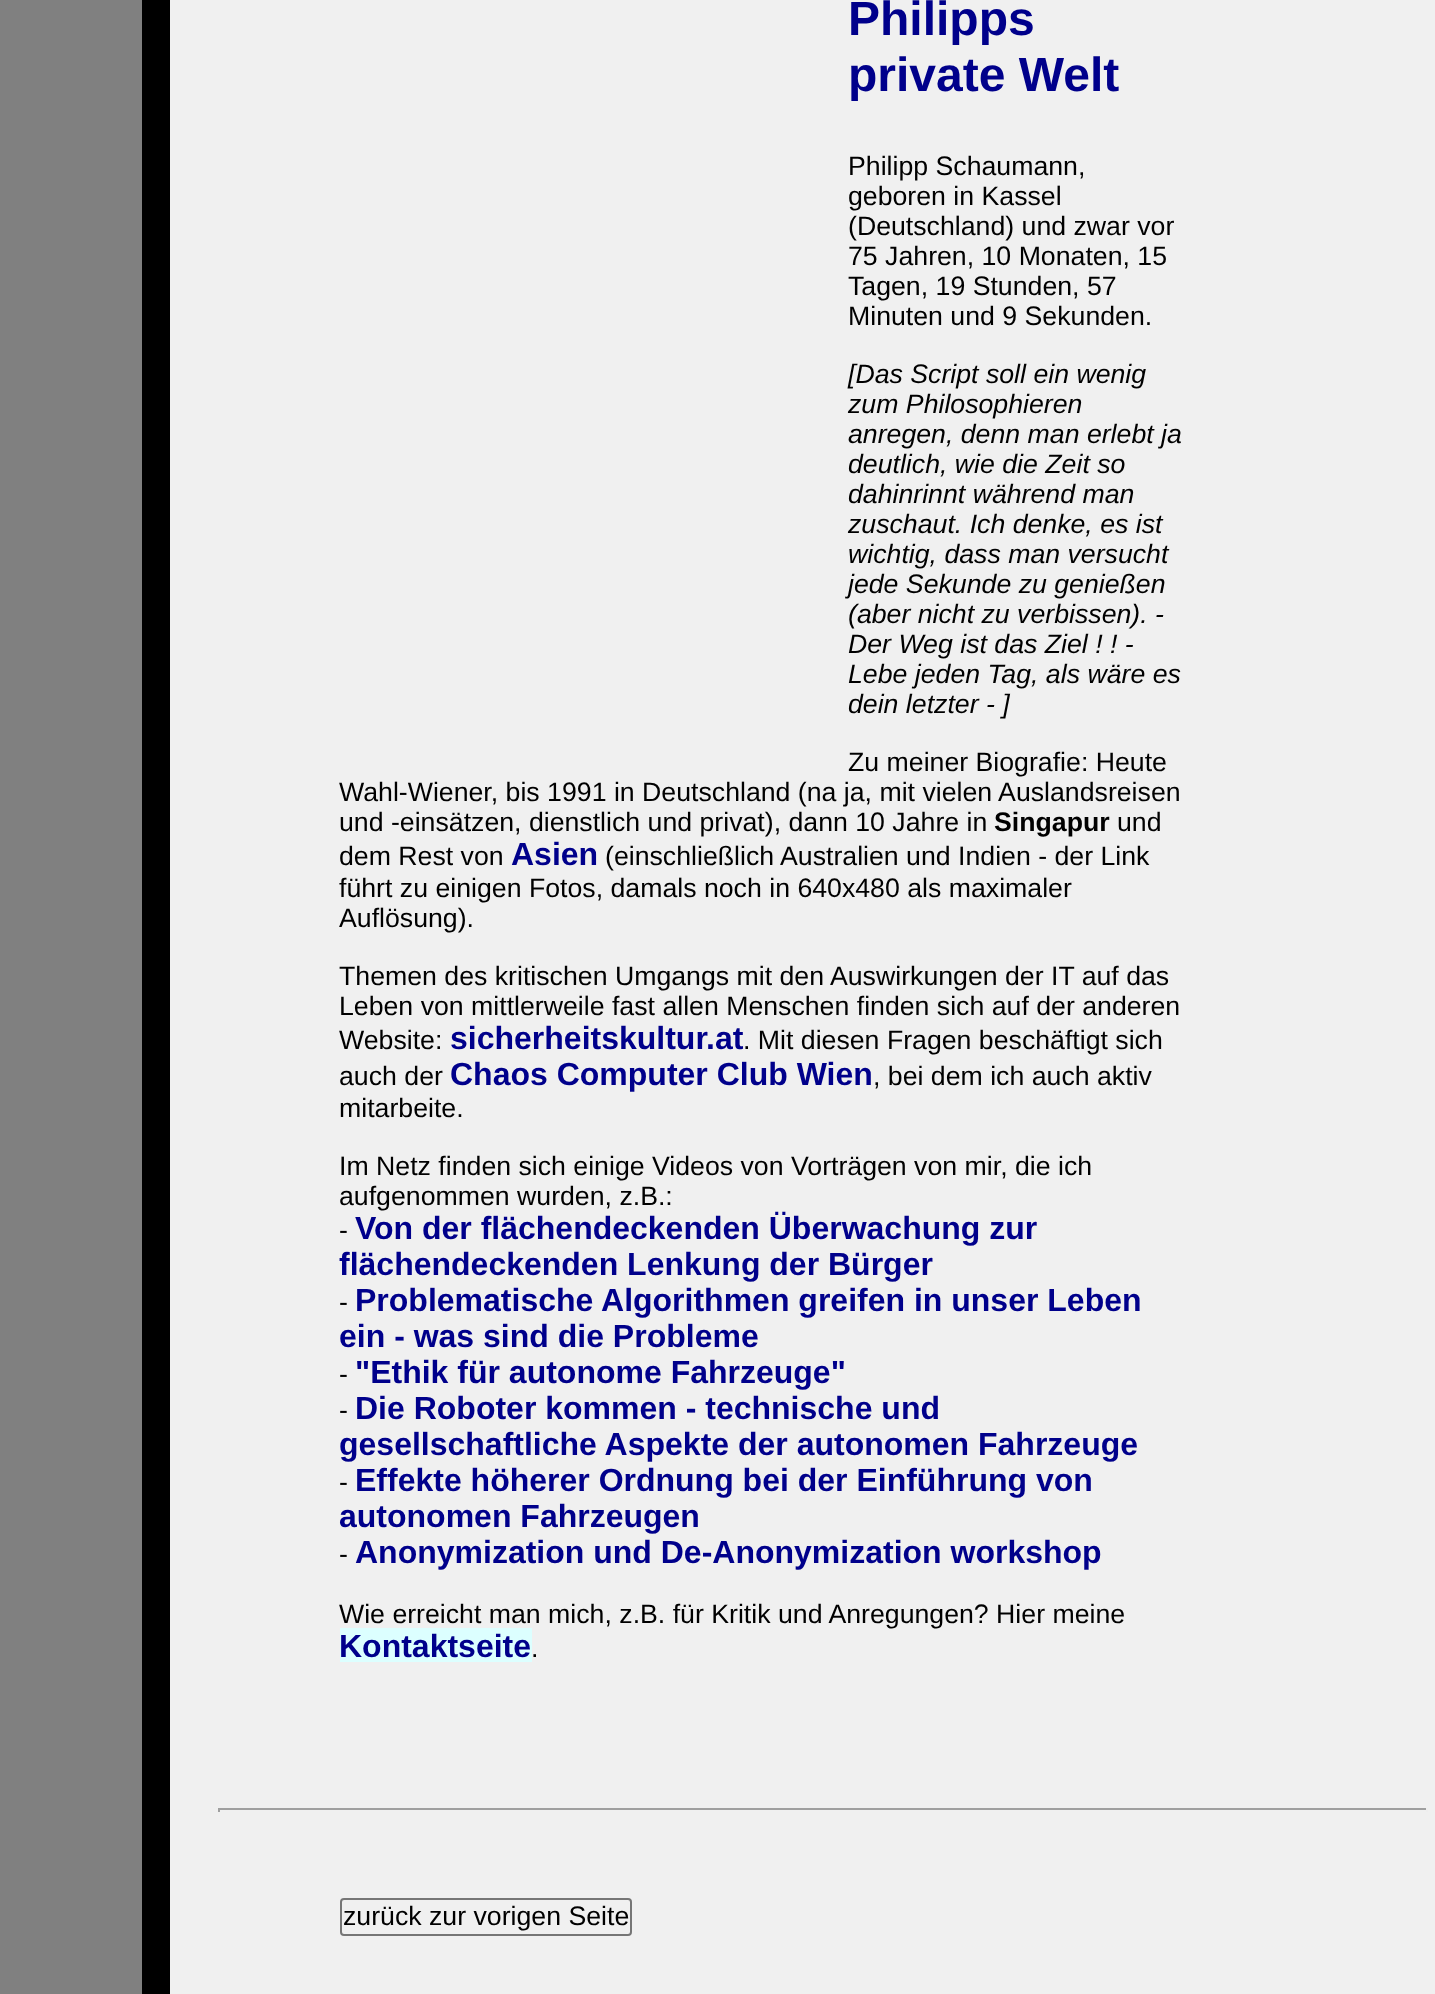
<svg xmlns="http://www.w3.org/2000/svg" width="1435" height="1994">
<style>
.a{font:bold 48px Liberation Sans;fill:#00008b}
.b{font:26.7px Liberation Sans;fill:#000}
.c{font:italic 26.7px Liberation Sans;fill:#000}
.d{font:bold 26.7px Liberation Sans;fill:#000}
.e{font:bold 32px Liberation Sans;fill:#00008b}
</style>
<rect width="100%" height="100%" fill="#f0f0f0"/>
<path fill="#808080" d="M0 0h142v1994H0z"/>
<path fill="#000" d="M142 0h28v1994H142z"/>
<path fill="#9f9f9f" d="M218 1808h1210v2H218z"/>
<path fill="#eee" d="M1426 1808h2v4H1426z"/>
<path fill="#9f9f9f" d="M218 1808h2v4H218z"/>
<rect fill="none" stroke="#767676" stroke-width="2" x="341" y="1899" width="290" height="36" rx="3"/>
<text class="a" x="848" y="35">Philipps</text>
<text class="a" x="848" y="91">private Welt</text>
<text class="b" x="848" y="175">Philipp Schaumann,</text>
<text class="b" x="848" y="205">geboren in Kassel</text>
<text class="b" x="848" y="235">(Deutschland) und zwar vor</text>
<text class="b" x="848" y="265">75 Jahren, 10 Monaten, 15</text>
<text class="b" x="848" y="295">Tagen, 19 Stunden, 57</text>
<text class="b" x="848" y="325">Minuten und 9 Sekunden.</text>
<text class="c" x="848" y="383">[Das Script soll ein wenig</text>
<text class="c" x="848" y="413">zum Philosophieren</text>
<text class="c" x="848" y="443">anregen, denn man erlebt ja</text>
<text class="c" x="848" y="473">deutlich, wie die Zeit so</text>
<text class="c" x="848" y="503">dahinrinnt während man</text>
<text class="c" x="848" y="533">zuschaut. Ich denke, es ist</text>
<text class="c" x="848" y="563">wichtig, dass man versucht</text>
<text class="c" x="848" y="593">jede Sekunde zu genießen</text>
<text class="c" x="848" y="623">(aber nicht zu verbissen). -</text>
<text class="c" x="848" y="653">Der Weg ist das Ziel ! ! -</text>
<text class="c" x="848" y="683">Lebe jeden Tag, als wäre es</text>
<text class="c" x="848" y="713">dein letzter - ]</text>
<text class="b" x="848" y="771">Zu meiner Biografie: Heute</text>
<text class="b" x="339" y="801">Wahl-Wiener, bis 1991 in Deutschland (na ja, mit vielen Auslandsreisen</text>
<text class="b" x="339" y="831">und -einsätzen, dienstlich und privat), dann 10 Jahre in</text>
<text class="d" x="994" y="831">Singapur</text>
<text class="b" x="1117" y="831">und</text>
<text class="b" x="339" y="865">dem Rest von</text>
<text class="e" x="511" y="865">Asien</text>
<text class="b" x="605" y="865">(einschließlich Australien und Indien - der Link</text>
<text class="b" x="339" y="897">führt zu einigen Fotos, damals noch in 640x480 als maximaler</text>
<text class="b" x="339" y="927">Auflösung).</text>
<text class="b" x="339" y="985">Themen des kritischen Umgangs mit den Auswirkungen der IT auf das</text>
<text class="b" x="339" y="1015">Leben von mittlerweile fast allen Menschen finden sich auf der anderen</text>
<text class="b" x="339" y="1049">Website:</text>
<text class="e" x="450" y="1049">sicherheitskultur.at</text>
<text class="b" x="743" y="1049">. Mit diesen Fragen beschäftigt sich</text>
<text class="b" x="339" y="1085">auch der</text>
<text class="e" x="450" y="1085">Chaos Computer Club Wien</text>
<text class="b" x="873" y="1085">, bei dem ich auch aktiv</text>
<text class="b" x="339" y="1117">mitarbeite.</text>
<text class="b" x="339" y="1175">Im Netz finden sich einige Videos von Vorträgen von mir, die ich</text>
<text class="b" x="339" y="1205">aufgenommen wurden, z.B.:</text>
<text class="b" x="339" y="1239">-</text>
<text class="e" x="355" y="1239">Von der flächendeckenden Überwachung zur</text>
<text class="e" x="339" y="1275">flächendeckenden Lenkung der Bürger</text>
<text class="b" x="339" y="1311">-</text>
<text class="e" x="355" y="1311">Problematische Algorithmen greifen in unser Leben</text>
<text class="e" x="339" y="1347">ein - was sind die Probleme</text>
<text class="b" x="339" y="1383">-</text>
<text class="e" x="355" y="1383">"Ethik für autonome Fahrzeuge"</text>
<text class="b" x="339" y="1419">-</text>
<text class="e" x="355" y="1419">Die Roboter kommen - technische und</text>
<text class="e" x="339" y="1455">gesellschaftliche Aspekte der autonomen Fahrzeuge</text>
<text class="b" x="339" y="1491">-</text>
<text class="e" x="355" y="1491">Effekte höherer Ordnung bei der Einführung von</text>
<text class="e" x="339" y="1527">autonomen Fahrzeugen</text>
<text class="b" x="339" y="1563">-</text>
<text class="e" x="355" y="1563">Anonymization und De-Anonymization workshop</text>
<text class="b" x="339" y="1623">Wie erreicht man mich, z.B. für Kritik und Anregungen? Hier meine</text>
<path fill="#dcffff" d="M340 1628h192v34H340z"/>
<text class="e" x="339" y="1657">Kontaktseite</text>
<text class="b" x="531" y="1657">.</text>
<text class="b" x="343" y="1925">zurück zur vorigen Seite</text>
</svg>
